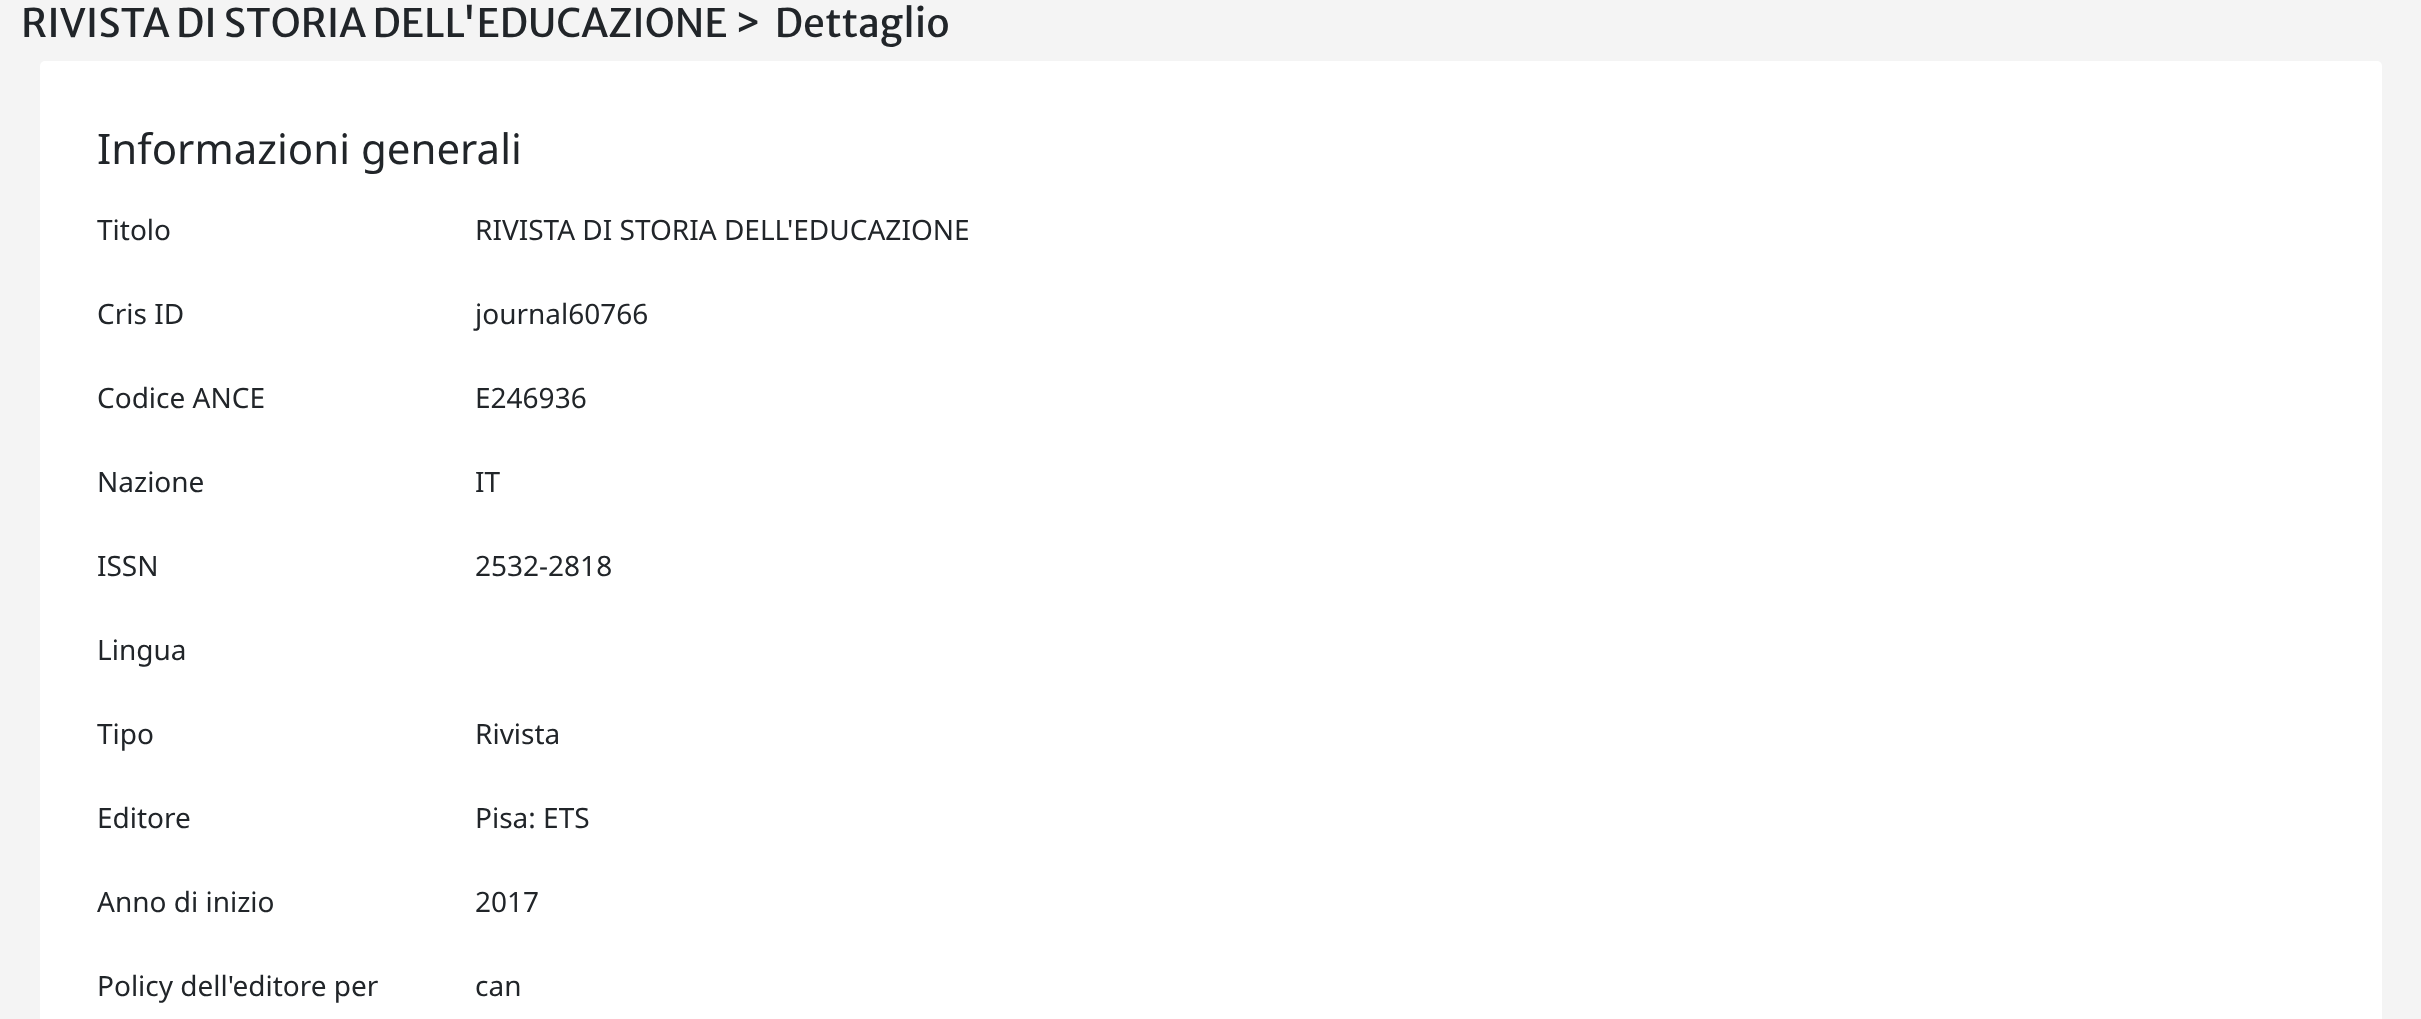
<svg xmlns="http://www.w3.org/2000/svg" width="2421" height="1019">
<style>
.a{font:39.2px Merriweather Sans;fill:#212529}
.b{font:42px Noto Sans;fill:#212529}
.c{font:28px Noto Sans;fill:#212529}
</style>
<rect width="100%" height="100%" fill="#f4f4f4"/>
<rect fill="#fff" x="40" y="61" width="2342" height="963" rx="5"/>
<text class="a" xml:space="preserve" x="21" y="37">RIVISTA DI STORIA DELL'EDUCAZIONE &gt;  Dettaglio</text>
<text class="b" x="97" y="164">Informazioni generali</text>
<text class="c" x="97" y="240">Titolo</text>
<text class="c" x="475" y="240">RIVISTA DI STORIA DELL'EDUCAZIONE</text>
<text class="c" x="97" y="324">Cris ID</text>
<text class="c" x="475" y="324">journal60766</text>
<text class="c" x="97" y="408">Codice ANCE</text>
<text class="c" x="475" y="408">E246936</text>
<text class="c" x="97" y="492">Nazione</text>
<text class="c" x="475" y="492">IT</text>
<text class="c" x="97" y="576">ISSN</text>
<text class="c" x="475" y="576">2532-2818</text>
<text class="c" x="97" y="660">Lingua</text>
<text class="c" x="97" y="744">Tipo</text>
<text class="c" x="475" y="744">Rivista</text>
<text class="c" x="97" y="828">Editore</text>
<text class="c" x="475" y="828">Pisa: ETS</text>
<text class="c" x="97" y="912">Anno di inizio</text>
<text class="c" x="475" y="912">2017</text>
<text class="c" x="97" y="996">Policy dell'editore per</text>
<text class="c" x="475" y="996">can</text>
</svg>
